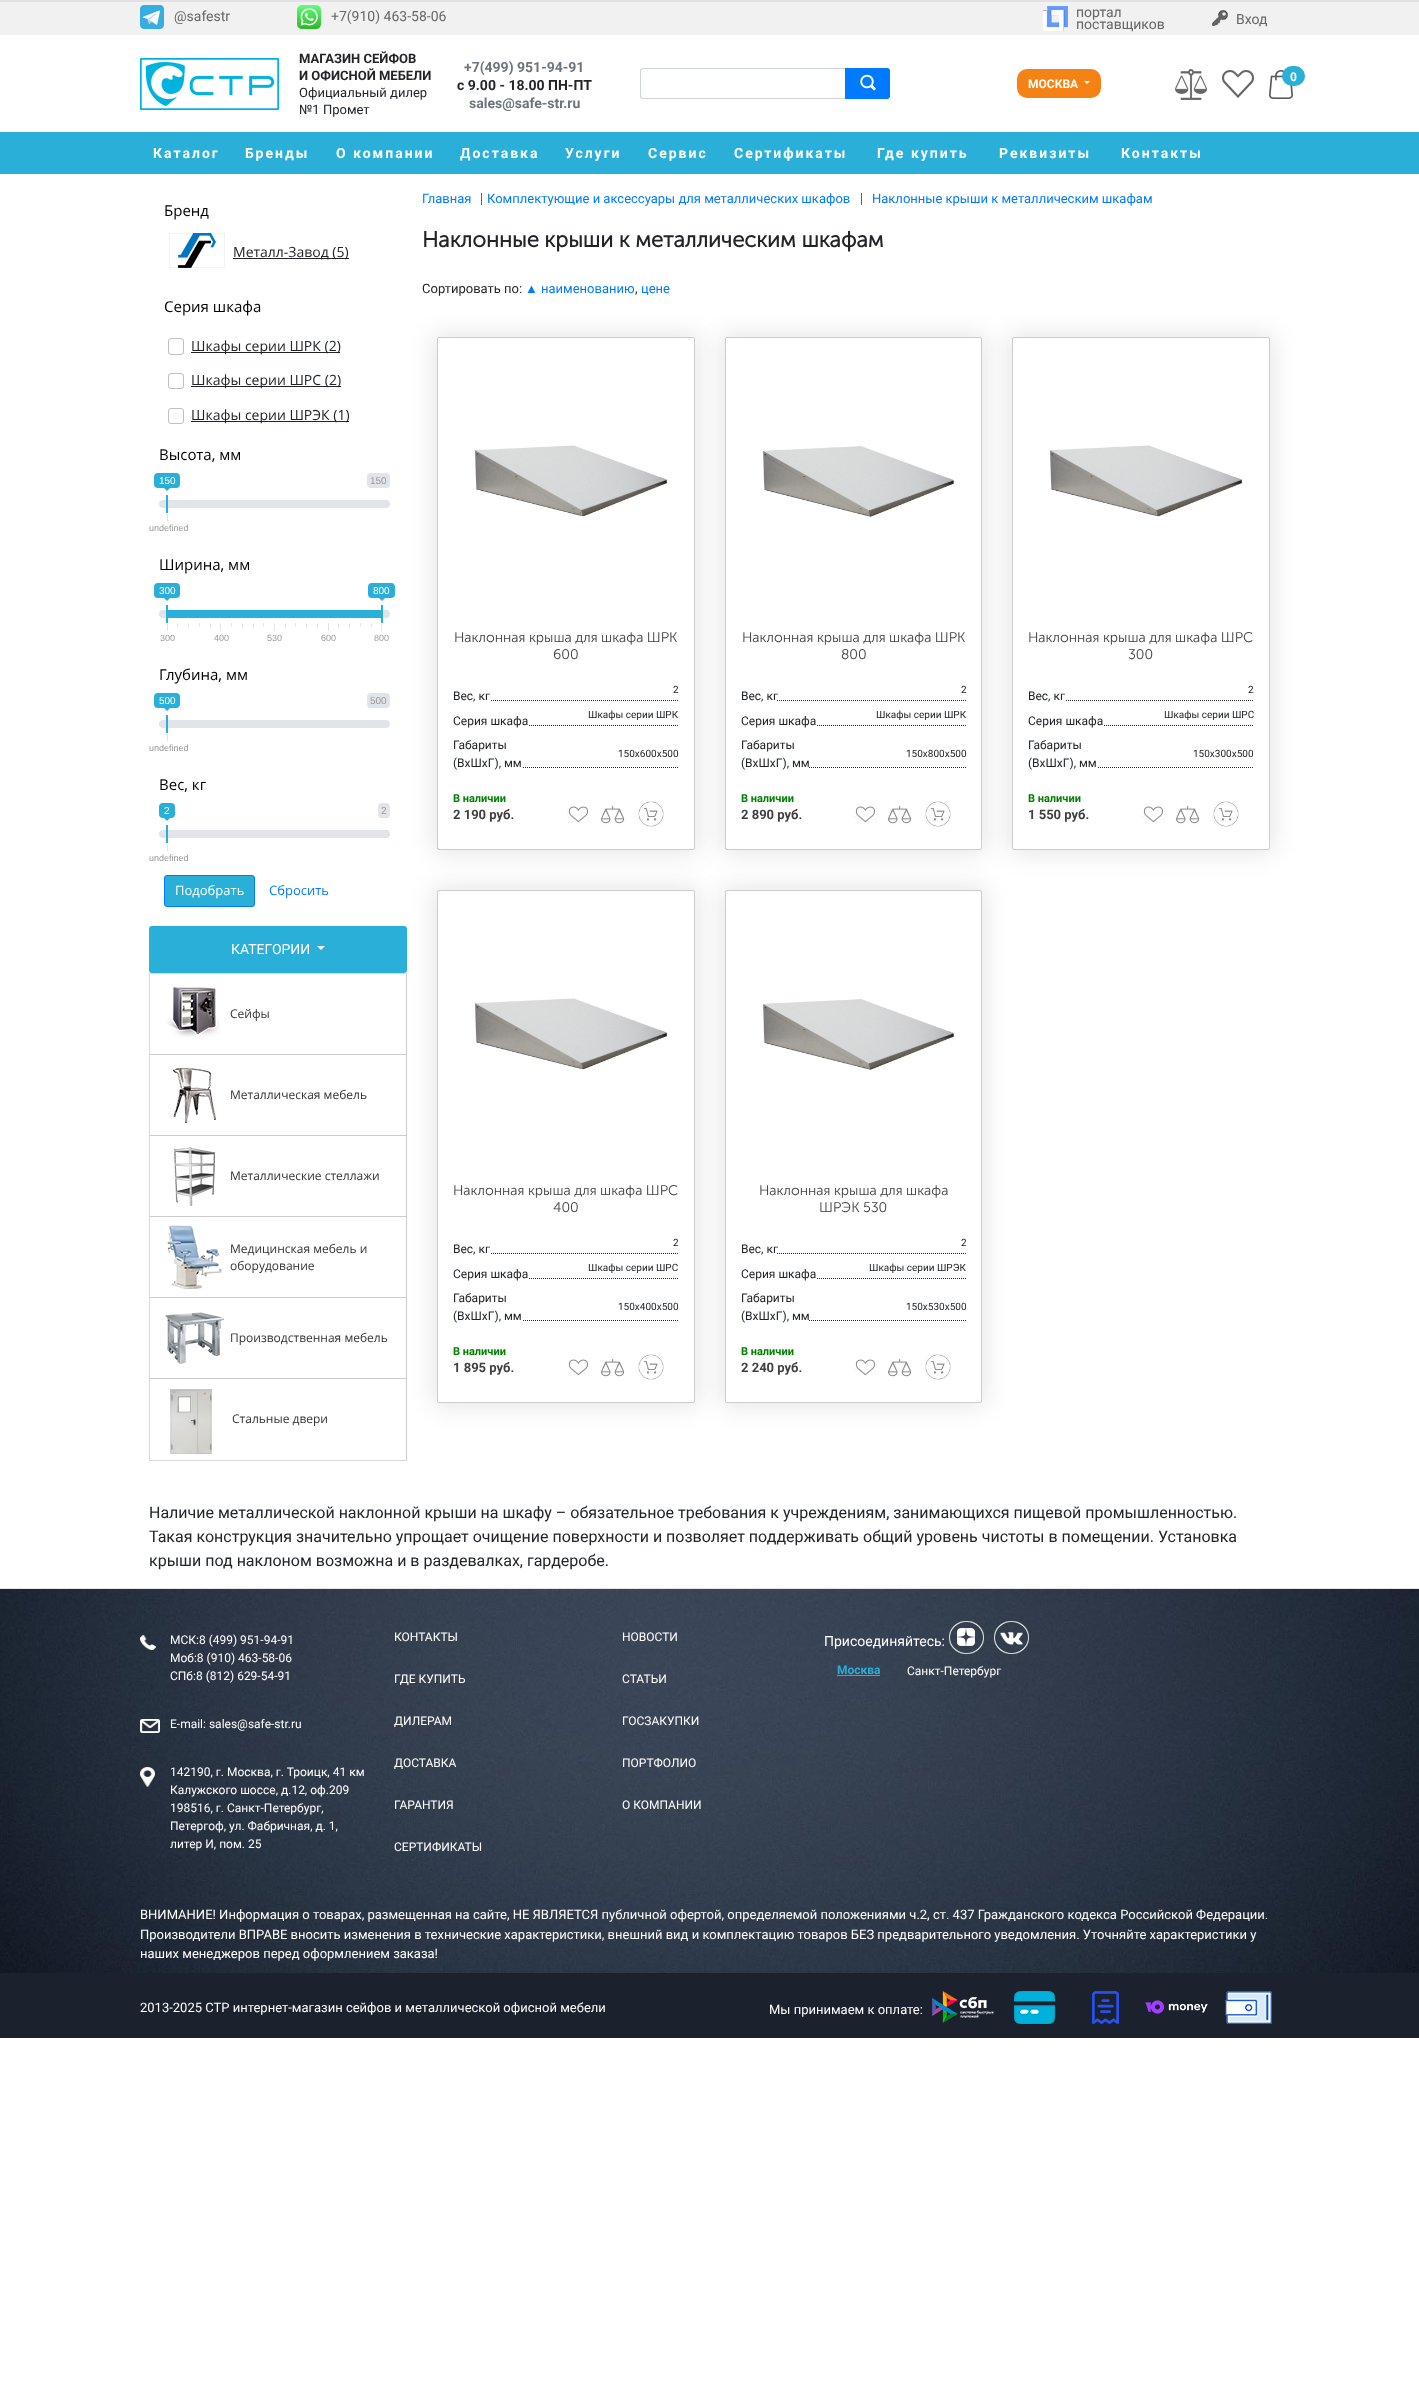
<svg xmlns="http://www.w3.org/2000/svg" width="1419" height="2406">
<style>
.a{font:14px Roboto;fill:#666}
.b{font:bold 13px Roboto;fill:#212529}
.c{font:13px Roboto;fill:#212529}
.d{font:bold 14px Roboto;fill:#6c757d}
.e{font:bold 14px Roboto;fill:#212529}
.f{font:bold 12px Roboto;fill:#fff}
.g{font:bold 14px Roboto;letter-spacing:2px;fill:#fff}
.h{font:13px Roboto;fill:#007bff}
.i{font:15px Open Sans;fill:#000}
.j{font:14px Open Sans;fill:#212529}
.k{font:10px Liberation Sans;fill:#fff}
.l{font:10px Liberation Sans;fill:#999}
.m{font:9px Liberation Sans;fill:#999}
.n{font:13px Open Sans;fill:#fff}
.o{font:13px Open Sans;fill:#007bff}
.p{font:14px Roboto;fill:#fff}
.q{font:12px 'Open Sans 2';fill:#333}
.r{font:bold 22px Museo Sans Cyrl;fill:#212529}
.s{font:13px Liberation Sans;fill:#007bff}
.t{font:300 14px Museo Sans Cyrl;fill:#3f3f3f}
.u{font:10px Roboto;fill:#212529}
.v{font:12px Roboto;fill:#212529}
.w{font:bold 11px Roboto;fill:#008000}
.x{font:bold 13px Roboto;fill:#3f3f3f}
.y{font:16px Roboto;fill:#212529}
.z{font:12px Roboto;fill:#fff}
.a1{font:bold 12px Roboto;fill:#2aafd8}
.b1{font:13px Roboto;fill:#fff}
</style>
<rect width="100%" height="100%" fill="#fff"/>
<path fill="#f1f1f1" d="M0 2h1419v33H0z"/>
<path fill="#e2e2e4" d="M0 0h1419v2H0z"/>
<image href="1.png" x="140" y="5" width="24" height="24"/>
<image href="2.png" x="297" y="5" width="24" height="24"/>
<image href="3.png" x="1043" y="6" width="25" height="25"/>
<image href="4.png" x="1212" y="10" width="16" height="16"/>
<image href="5.png" x="140" y="58" width="139" height="52"/>
<path fill="#ced4da" fill-rule="evenodd" d="M643 68h203v31h-203c-2 0-3-1-3-3v-25c0-2 1-3 3-3zm0 1h203v29h-203c-1 0-2-1-2-2v-25c0-1 1-2 2-2z"/>
<path fill="#007bff" d="M845 68h42c1.5 0 3 1.5 3 3v25c0 1.5-1.5 3-3 3h-42z"/>
<image href="6.png" x="860" y="74" width="16" height="17"/>
<path fill="none" stroke="#007bff" d="M845.5 68.5h41.5c1.5 0 2.5 1 2.5 2.5v25c0 1.5-1 2.5-2.5 2.5h-41.5z"/>
<image href="7.png" x="1175" y="69" width="32" height="31"/>
<image href="8.png" x="1222" y="70" width="32" height="28"/>
<image href="9.png" x="1269" y="70" width="24" height="29"/>
<rect fill="#2aafd8" x="1282" y="66" width="23" height="20" rx="10"/>
<rect fill="#f58214" x="1017" y="69" width="84" height="29" rx="10"/>
<path fill="#fff" d="M1084 81h6l-3 3z"/>
<path fill="#2aafd8" d="M0 132h1419v42H0z"/>
<path fill="#666" d="M481 193h1v12H481z"/>
<path fill="#666" d="M861 193h1v12H861z"/>
<image href="10.png" x="178" y="233" width="38" height="35"/>
<path fill="none" stroke="#0000000d" d="M169.5 233.5h55v34H169.5z"/>
<path fill="#212529" d="M233 258h116v1H233z"/>
<rect fill="none" stroke="#bfbfbf" x="168.5" y="338.5" width="15" height="16" rx="2.5"/>
<path fill="#212529" d="M191 352h149v1H191z"/>
<rect fill="none" stroke="#bfbfbf" x="168.5" y="373.5" width="15" height="15" rx="2.5"/>
<path fill="#212529" d="M191 386h150v1H191z"/>
<rect fill="none" stroke="#bfbfbf" x="168.5" y="408.5" width="15" height="15" rx="2.5"/>
<path fill="#212529" d="M191 421h158v1H191z"/>
<rect fill="#2aafd8" x="154" y="473" width="26" height="15" rx="4"/>
<path fill="#2aafd8" d="M164 488h6l-3 3z"/>
<rect fill="#e1e4e9" x="367" y="473" width="23" height="15" rx="4"/>
<rect fill="#e1e4e9" x="159" y="500" width="231" height="8" rx="4"/>
<path fill="#2aafd8" d="M166 495h2v18H166z"/>
<path fill="#e1e4e9" d="M167 513h1v8H167z"/>
<rect fill="#2aafd8" x="154" y="583" width="26" height="15" rx="4"/>
<path fill="#2aafd8" d="M164 598h6l-3 3z"/>
<rect fill="#2aafd8" x="368" y="583" width="27" height="15" rx="4"/>
<path fill="#2aafd8" d="M379 598h6l-3 3z"/>
<rect fill="#e1e4e9" x="159" y="610" width="231" height="8" rx="4"/>
<path fill="#2aafd8" d="M167 610h215v8H167z"/>
<path fill="#2aafd8" d="M166 605h2v18H166z"/>
<path fill="#2aafd8" d="M381 605h2v18H381z"/>
<path fill="#e1e4e9" d="M167 623h1v8H167z"/>
<path fill="#e1e4e9" d="M177 623h1v4H177z"/>
<path fill="#e1e4e9" d="M188 623h1v4H188z"/>
<path fill="#e1e4e9" d="M199 623h1v4H199z"/>
<path fill="#e1e4e9" d="M210 623h1v4H210z"/>
<path fill="#e1e4e9" d="M220 623h1v8H220z"/>
<path fill="#e1e4e9" d="M231 623h1v4H231z"/>
<path fill="#e1e4e9" d="M242 623h1v4H242z"/>
<path fill="#e1e4e9" d="M253 623h1v4H253z"/>
<path fill="#e1e4e9" d="M263 623h1v4H263z"/>
<path fill="#e1e4e9" d="M274 623h1v8H274z"/>
<path fill="#e1e4e9" d="M285 623h1v4H285z"/>
<path fill="#e1e4e9" d="M295 623h1v4H295z"/>
<path fill="#e1e4e9" d="M306 623h1v4H306z"/>
<path fill="#e1e4e9" d="M317 623h1v4H317z"/>
<path fill="#e1e4e9" d="M328 623h1v8H328z"/>
<path fill="#e1e4e9" d="M338 623h1v4H338z"/>
<path fill="#e1e4e9" d="M349 623h1v4H349z"/>
<path fill="#e1e4e9" d="M360 623h1v4H360z"/>
<path fill="#e1e4e9" d="M371 623h1v4H371z"/>
<path fill="#e1e4e9" d="M381 623h1v8H381z"/>
<rect fill="#2aafd8" x="154" y="693" width="26" height="15" rx="4"/>
<path fill="#2aafd8" d="M164 708h6l-3 3z"/>
<rect fill="#e1e4e9" x="367" y="693" width="23" height="15" rx="4"/>
<rect fill="#e1e4e9" x="159" y="720" width="231" height="8" rx="4"/>
<path fill="#2aafd8" d="M166 715h2v18H166z"/>
<path fill="#e1e4e9" d="M167 733h1v8H167z"/>
<rect fill="#2aafd8" x="159" y="803" width="16" height="15" rx="4"/>
<path fill="#2aafd8" d="M164 818h6l-3 3z"/>
<rect fill="#e1e4e9" x="378" y="803" width="12" height="15" rx="4"/>
<rect fill="#e1e4e9" x="159" y="830" width="231" height="8" rx="4"/>
<path fill="#2aafd8" d="M166 825h2v18H166z"/>
<path fill="#e1e4e9" d="M167 843h1v8H167z"/>
<rect fill="#2aafd8" stroke="#007bff" x="164.5" y="875.5" width="90" height="31" rx="2.5"/>
<rect fill="#2aafd8" x="149" y="926" width="258" height="47" rx="3"/>
<path fill="#fff" d="M317 946h8l-4 4z"/>
<rect fill="#0000001a" filter="blur(12.5px)" x="434" y="334" width="264" height="519" rx="5"/>
<rect fill="#fff" stroke="#ccc" x="437.5" y="337.5" width="257" height="512" rx="1.5"/>
<rect fill="#0000001a" filter="blur(12.5px)" x="722" y="334" width="263" height="519" rx="5"/>
<rect fill="#fff" stroke="#ccc" x="725.5" y="337.5" width="256" height="512" rx="1.5"/>
<rect fill="#0000001a" filter="blur(12.5px)" x="434" y="887" width="264" height="519" rx="5"/>
<path fill="#d9d9d9" d="M149 973h258l-1 1h-256z"/>
<path fill="#ccc" d="M407 973v488l-1-1v-486z"/>
<path fill="#00000026" d="M407 1461h-258l1-1h256z"/>
<path fill="#00000026" d="M149 1461v-488l1 1v486z"/>
<path fill="#ccc" d="M150 1054h256v1H150z"/>
<image href="11.png" x="167" y="987" width="53" height="50"/>
<path fill="#ccc" d="M150 1135h256v1H150z"/>
<image href="12.png" x="173" y="1068" width="43" height="55"/>
<path fill="#ccc" d="M150 1216h256v1H150z"/>
<image href="13.png" x="174" y="1147" width="41" height="59"/>
<path fill="#ccc" d="M150 1297h256v1H150z"/>
<image href="14.png" x="167" y="1225" width="55" height="64"/>
<path fill="#ccc" d="M150 1378h256v1H150z"/>
<image href="15.png" x="165" y="1312" width="59" height="52"/>
<image href="16.png" x="170" y="1389" width="42" height="65"/>
<image href="17.png" x="474" y="445" width="194" height="72"/>
<path fill="none" stroke="#212529" stroke-dasharray="1 1" d="M453 700.5h226"/>
<path fill="#fff" d="M453 700h37v1H453z"/>
<path fill="none" stroke="#212529" stroke-dasharray="1 1" d="M453 725.5h226"/>
<path fill="#fff" d="M453 725h75v1H453z"/>
<path fill="none" stroke="#212529" stroke-dasharray="1 1" d="M453 767.5h226"/>
<path fill="#fff" d="M453 767h69v1H453z"/>
<image href="18.png" x="566" y="803" width="24" height="20"/>
<image href="19.png" x="600" y="801" width="25" height="24"/>
<image href="20.png" x="638" y="801" width="26" height="26"/>
<image href="21.png" x="762" y="446" width="192" height="71"/>
<path fill="none" stroke="#212529" stroke-dasharray="1 1" d="M741 700.5h225"/>
<path fill="#fff" d="M741 700h35v1H741z"/>
<path fill="none" stroke="#212529" stroke-dasharray="1 1" d="M741 725.5h225"/>
<path fill="#fff" d="M741 725h75v1H741z"/>
<path fill="none" stroke="#212529" stroke-dasharray="1 1" d="M741 767.5h225"/>
<path fill="#fff" d="M741 767h67v1H741z"/>
<image href="18.png" x="853" y="803" width="24" height="20"/>
<image href="19.png" x="887" y="801" width="25" height="24"/>
<image href="20.png" x="925" y="801" width="26" height="26"/>
<rect fill="#0000001a" filter="blur(12.5px)" x="1009" y="334" width="264" height="519" rx="5"/>
<rect fill="#fff" stroke="#ccc" x="1012.5" y="337.5" width="257" height="512" rx="1.5"/>
<image href="22.png" x="1049" y="445" width="194" height="72"/>
<path fill="none" stroke="#212529" stroke-dasharray="1 1" d="M1028 700.5h226"/>
<path fill="#fff" d="M1028 700h37v1H1028z"/>
<path fill="none" stroke="#212529" stroke-dasharray="1 1" d="M1028 725.5h226"/>
<path fill="#fff" d="M1028 725h75v1H1028z"/>
<path fill="none" stroke="#212529" stroke-dasharray="1 1" d="M1028 767.5h226"/>
<path fill="#fff" d="M1028 767h69v1H1028z"/>
<image href="18.png" x="1141" y="803" width="24" height="20"/>
<image href="19.png" x="1175" y="801" width="25" height="24"/>
<image href="20.png" x="1213" y="801" width="26" height="26"/>
<rect fill="#fff" stroke="#ccc" x="437.5" y="890.5" width="257" height="512" rx="1.5"/>
<image href="17.png" x="474" y="998" width="194" height="72"/>
<path fill="none" stroke="#212529" stroke-dasharray="1 1" d="M453 1253.5h226"/>
<path fill="#fff" d="M453 1253h37v1H453z"/>
<path fill="none" stroke="#212529" stroke-dasharray="1 1" d="M453 1278.5h226"/>
<path fill="#fff" d="M453 1278h75v1H453z"/>
<path fill="none" stroke="#212529" stroke-dasharray="1 1" d="M453 1320.5h226"/>
<path fill="#fff" d="M453 1320h69v1H453z"/>
<image href="18.png" x="566" y="1356" width="24" height="20"/>
<image href="19.png" x="600" y="1354" width="25" height="24"/>
<image href="20.png" x="638" y="1354" width="26" height="26"/>
<rect fill="#0000001a" filter="blur(12.5px)" x="722" y="887" width="263" height="519" rx="5"/>
<rect fill="#fff" stroke="#ccc" x="725.5" y="890.5" width="256" height="512" rx="1.5"/>
<image href="23.png" x="762" y="999" width="192" height="71"/>
<path fill="none" stroke="#212529" stroke-dasharray="1 1" d="M741 1253.5h225"/>
<path fill="#fff" d="M741 1253h35v1H741z"/>
<path fill="none" stroke="#212529" stroke-dasharray="1 1" d="M741 1278.5h225"/>
<path fill="#fff" d="M741 1278h75v1H741z"/>
<path fill="none" stroke="#212529" stroke-dasharray="1 1" d="M741 1320.5h225"/>
<path fill="#fff" d="M741 1320h67v1H741z"/>
<image href="18.png" x="853" y="1356" width="24" height="20"/>
<image href="19.png" x="887" y="1354" width="25" height="24"/>
<image href="20.png" x="925" y="1354" width="26" height="26"/>
<image href="24.png" x="0" y="1589" width="1419" height="384"/>
<path fill="#e5e5e5" d="M0 1588h1419v1H0z"/>
<image href="25.png" x="140" y="1635" width="16" height="15"/>
<image href="26.png" x="140" y="1719" width="20" height="14"/>
<image href="27.png" x="140" y="1767" width="15" height="20"/>
<image href="28.png" x="949" y="1621" width="35" height="33"/>
<image href="29.png" x="994" y="1621" width="35" height="33"/>
<path fill="#2aafd8" d="M837 1675h43v1H837z"/>
<path fill="#1b212d" d="M0 1973h1419v65H0z"/>
<image href="30.png" x="932" y="1991" width="62" height="32"/>
<image href="31.png" x="1014" y="1991" width="41" height="33"/>
<image href="32.png" x="1092" y="1991" width="27" height="33"/>
<image href="33.png" x="1145" y="2000" width="63" height="14"/>
<image href="34.png" x="1225" y="1991" width="47" height="33"/>
<text class="a" x="174" y="21">@safestr</text>
<text class="a" x="331" y="21">+7(910) 463-58-06</text>
<text class="a" x="1076" y="17">портал</text>
<text class="a" x="1076" y="29">поставщиков</text>
<text class="a" x="1236" y="24">Вход</text>
<text class="b" x="299" y="63">МАГАЗИН СЕЙФОВ</text>
<text class="b" x="299" y="80">И ОФИСНОЙ МЕБЕЛИ</text>
<text class="c" x="299" y="97">Официальный дилер</text>
<text class="c" x="299" y="114">№1 Промет</text>
<text class="d" x="464" y="72">+7(499) 951-94-91</text>
<text class="e" x="457" y="90">с 9.00 - 18.00 ПН-ПТ</text>
<text class="d" x="469" y="108">sales@safe-str.ru</text>
<text class="f" x="1290" y="81">0</text>
<text class="f" x="1028" y="88">МОСКВА</text>
<text class="g" x="153" y="158">Каталог</text>
<text class="g" x="245" y="158">Бренды</text>
<text class="g" x="336" y="158">О компании</text>
<text class="g" x="460" y="158">Доставка</text>
<text class="g" x="565" y="158">Услуги</text>
<text class="g" x="648" y="158">Сервис</text>
<text class="g" x="734" y="158">Сертификаты</text>
<text class="g" x="877" y="158">Где купить</text>
<text class="g" x="999" y="158">Реквизиты</text>
<text class="g" x="1121" y="158">Контакты</text>
<text class="h" x="422" y="203">Главная</text>
<text class="h" x="487" y="203">Комплектующие и аксессуары для металлических шкафов</text>
<text class="h" x="872" y="203">Наклонные крыши к металлическим шкафам</text>
<text class="i" x="164" y="216">Бренд</text>
<text class="j" x="233" y="257">Металл-Завод (5)</text>
<text class="i" x="164" y="312">Серия шкафа</text>
<text class="j" x="191" y="351">Шкафы серии ШРК (2)</text>
<text class="j" x="191" y="385">Шкафы серии ШРС (2)</text>
<text class="j" x="191" y="420">Шкафы серии ШРЭК (1)</text>
<text class="i" x="159" y="460">Высота, мм</text>
<text class="k" x="159" y="484">150</text>
<text class="l" x="370" y="484">150</text>
<text class="m" x="149" y="531">undefined</text>
<text class="i" x="159" y="570">Ширина, мм</text>
<text class="k" x="159" y="594">300</text>
<text class="k" x="373" y="594">800</text>
<text class="m" x="160" y="641">300</text>
<text class="m" x="214" y="641">400</text>
<text class="m" x="267" y="641">530</text>
<text class="m" x="321" y="641">600</text>
<text class="m" x="374" y="641">800</text>
<text class="i" x="159" y="680">Глубина, мм</text>
<text class="k" x="159" y="704">500</text>
<text class="l" x="370" y="704">500</text>
<text class="m" x="149" y="751">undefined</text>
<text class="i" x="159" y="790">Вес, кг</text>
<text class="k" x="164" y="814">2</text>
<text class="l" x="381" y="814">2</text>
<text class="m" x="149" y="861">undefined</text>
<text class="n" x="175" y="895">Подобрать</text>
<text class="o" x="269" y="895">Сбросить</text>
<text class="p" x="231" y="954">КАТЕГОРИИ</text>
<text class="q" x="230" y="1018">Сейфы</text>
<text class="q" x="230" y="1099">Металлическая мебель</text>
<text class="q" x="230" y="1180">Металлические стеллажи</text>
<text class="q" x="230" y="1253">Медицинская мебель и</text>
<text class="q" x="230" y="1270">оборудование</text>
<text class="q" x="230" y="1342">Производственная мебель</text>
<text class="q" x="232" y="1423">Стальные двери</text>
<text class="r" x="422" y="247">Наклонные крыши к металлическим шкафам</text>
<text class="c" x="422" y="293">Сортировать по:</text>
<text class="s" x="525" y="293">▲</text>
<text class="h" x="541" y="293">наименованию</text>
<text class="c" x="635" y="293">,</text>
<text class="h" x="641" y="293">цене</text>
<text class="t" x="454" y="642">Наклонная крыша для шкафа ШРК</text>
<text class="t" x="553" y="659">600</text>
<text class="u" x="673" y="693">2</text>
<text class="v" x="453" y="700">Вес, кг</text>
<text class="u" x="588" y="718">Шкафы серии ШРК</text>
<text class="v" x="453" y="725">Серия шкафа</text>
<text class="v" x="453" y="749">Габариты</text>
<text class="v" x="453" y="767">(ВхШхГ), мм</text>
<text class="u" x="618" y="757">150x600x500</text>
<text class="w" x="453" y="802">В наличии</text>
<text class="x" x="453" y="819">2 190 руб.</text>
<text class="t" x="742" y="642">Наклонная крыша для шкафа ШРК</text>
<text class="t" x="841" y="659">800</text>
<text class="u" x="961" y="693">2</text>
<text class="v" x="741" y="700">Вес, кг</text>
<text class="u" x="876" y="718">Шкафы серии ШРК</text>
<text class="v" x="741" y="725">Серия шкафа</text>
<text class="v" x="741" y="749">Габариты</text>
<text class="v" x="741" y="767">(ВхШхГ), мм</text>
<text class="u" x="906" y="757">150x800x500</text>
<text class="w" x="741" y="802">В наличии</text>
<text class="x" x="741" y="819">2 890 руб.</text>
<text class="t" x="1028" y="642">Наклонная крыша для шкафа ШРС</text>
<text class="t" x="1128" y="659">300</text>
<text class="u" x="1248" y="693">2</text>
<text class="v" x="1028" y="700">Вес, кг</text>
<text class="u" x="1164" y="718">Шкафы серии ШРС</text>
<text class="v" x="1028" y="725">Серия шкафа</text>
<text class="v" x="1028" y="749">Габариты</text>
<text class="v" x="1028" y="767">(ВхШхГ), мм</text>
<text class="u" x="1193" y="757">150x300x500</text>
<text class="w" x="1028" y="802">В наличии</text>
<text class="x" x="1028" y="819">1 550 руб.</text>
<text class="t" x="453" y="1195">Наклонная крыша для шкафа ШРС</text>
<text class="t" x="553" y="1212">400</text>
<text class="u" x="673" y="1246">2</text>
<text class="v" x="453" y="1253">Вес, кг</text>
<text class="u" x="588" y="1271">Шкафы серии ШРС</text>
<text class="v" x="453" y="1278">Серия шкафа</text>
<text class="v" x="453" y="1302">Габариты</text>
<text class="v" x="453" y="1320">(ВхШхГ), мм</text>
<text class="u" x="618" y="1310">150x400x500</text>
<text class="w" x="453" y="1355">В наличии</text>
<text class="x" x="453" y="1372">1 895 руб.</text>
<text class="t" x="759" y="1195">Наклонная крыша для шкафа</text>
<text class="t" x="819" y="1212">ШРЭК 530</text>
<text class="u" x="961" y="1246">2</text>
<text class="v" x="741" y="1253">Вес, кг</text>
<text class="u" x="869" y="1271">Шкафы серии ШРЭК</text>
<text class="v" x="741" y="1278">Серия шкафа</text>
<text class="v" x="741" y="1302">Габариты</text>
<text class="v" x="741" y="1320">(ВхШхГ), мм</text>
<text class="u" x="906" y="1310">150x530x500</text>
<text class="w" x="741" y="1355">В наличии</text>
<text class="x" x="741" y="1372">2 240 руб.</text>
<text class="y" x="149" y="1518">Наличие металлической наклонной крыши на шкафу – обязательное требования к учреждениям, занимающихся пищевой промышленностью.</text>
<text class="y" x="149" y="1542">Такая конструкция значительно упрощает очищение поверхности и позволяет поддерживать общий уровень чистоты в помещении. Установка</text>
<text class="y" x="149" y="1566">крыши под наклоном возможна и в раздевалках, гардеробе.</text>
<text class="z" x="170" y="1644">МСК:8 (499) 951-94-91</text>
<text class="z" x="170" y="1662">Моб:8 (910) 463-58-06</text>
<text class="z" x="170" y="1680">СПб:8 (812) 629-54-91</text>
<text class="z" x="170" y="1728">E-mail: sales@safe-str.ru</text>
<text class="z" x="170" y="1776">142190, г. Москва, г. Троицк, 41 км</text>
<text class="z" x="170" y="1794">Калужского шоссе, д.12, оф.209</text>
<text class="z" x="170" y="1812">198516, г. Санкт-Петербург,</text>
<text class="z" x="170" y="1830">Петергоф, ул. Фабричная, д. 1,</text>
<text class="z" x="170" y="1848">литер И, пом. 25</text>
<text class="z" x="394" y="1641">КОНТАКТЫ</text>
<text class="z" x="394" y="1683">ГДЕ КУПИТЬ</text>
<text class="z" x="394" y="1725">ДИЛЕРАМ</text>
<text class="z" x="394" y="1767">ДОСТАВКА</text>
<text class="z" x="394" y="1809">ГАРАНТИЯ</text>
<text class="z" x="394" y="1851">СЕРТИФИКАТЫ</text>
<text class="z" x="622" y="1641">НОВОСТИ</text>
<text class="z" x="622" y="1683">СТАТЬИ</text>
<text class="z" x="622" y="1725">ГОСЗАКУПКИ</text>
<text class="z" x="622" y="1767">ПОРТФОЛИО</text>
<text class="z" x="622" y="1809">О КОМПАНИИ</text>
<text class="p" x="824" y="1646">Присоединяйтесь:</text>
<text class="a1" x="837" y="1674">Москва</text>
<text class="z" x="907" y="1675">Санкт-Петербург</text>
<text class="b1" x="140" y="1919">ВНИМАНИЕ! Информация о товарах, размещенная на сайте, НЕ ЯВЛЯЕТСЯ публичной офертой, определяемой положениями ч.2, ст. 437 Гражданского кодекса Российской Федерации.</text>
<text class="b1" x="140" y="1939">Производители ВПРАВЕ вносить изменения в технические характеристики, внешний вид и комплектацию товаров БЕЗ предварительного уведомления. Уточняйте характеристики у</text>
<text class="b1" x="140" y="1958">наших менеджеров перед оформлением заказа!</text>
<text class="b1" x="140" y="2012">2013-2025 СТР интернет-магазин сейфов и металлической офисной мебели</text>
<text class="b1" x="769" y="2014">Мы принимаем к оплате:</text>
</svg>
